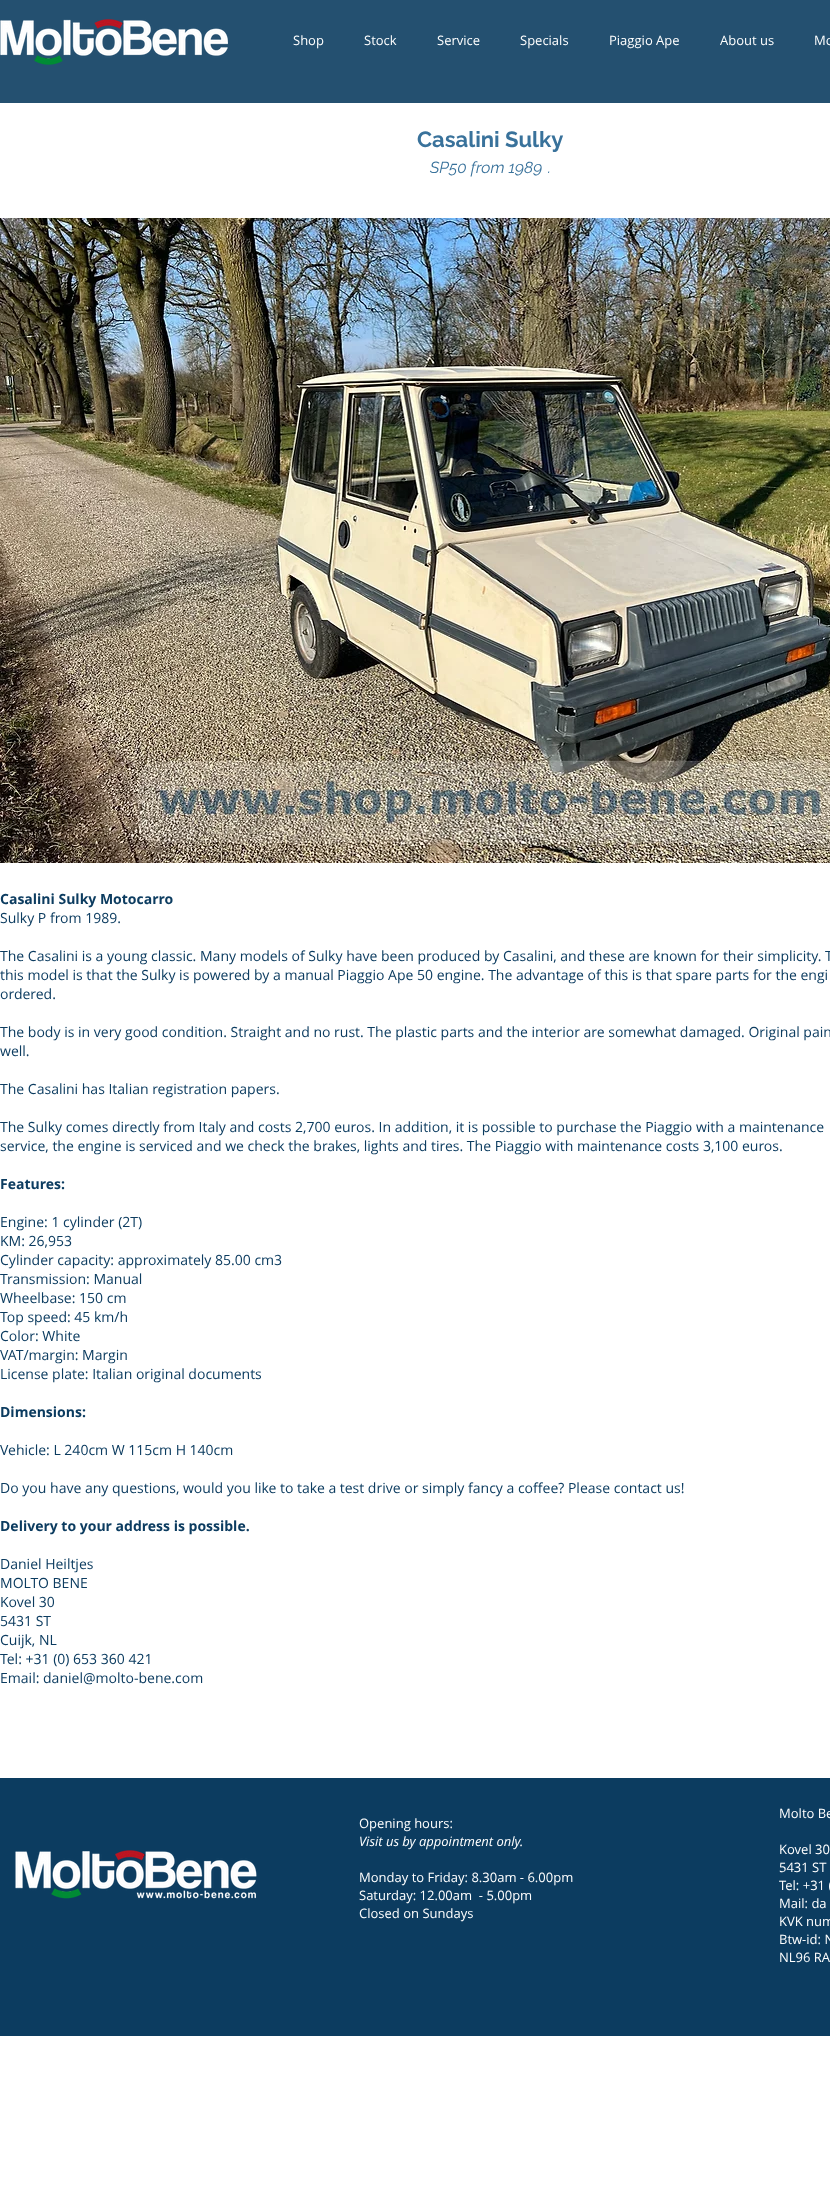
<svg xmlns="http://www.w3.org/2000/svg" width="830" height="2190">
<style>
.a{font:13px Open Sans;fill:#fff}
.b{font:bold 22px Raleway;fill:#39729b}
.c{font:italic 16px Raleway;fill:#39729b}
.d{font:bold 14px Open Sans;fill:#0c3c60}
.e{font:14px Open Sans;fill:#0c3c60}
.f{font:italic 13px Open Sans;fill:#fff}
</style>
<rect width="100%" height="100%" fill="#fff"/>
<path fill="#245070" d="M0 0h830v103H0z"/>
<image href="1.png" x="0" y="19" width="228" height="46"/>
<image href="2.png" x="0" y="218" width="830" height="645"/>
<path fill="#0c3c60" d="M0 1778h830v258H0z"/>
<image href="3.png" x="15" y="1850" width="242" height="49"/>
<text class="a" x="293" y="45">Shop</text>
<text class="a" x="364" y="45">Stock</text>
<text class="a" x="437" y="45">Service</text>
<text class="a" x="520" y="45">Specials</text>
<text class="a" x="609" y="45">Piaggio Ape</text>
<text class="a" x="720" y="45">About us</text>
<text class="a" x="814" y="45">Mo</text>
<text class="b" x="417" y="147">Casalini Sulky</text>
<text class="c" x="430" y="173">SP50 from 1989</text>
<text class="c" x="548" y="173">.</text>
<text class="d" x="0" y="904">Casalini Sulky Motocarro</text>
<text class="e" x="0" y="923">Sulky P from 1989.</text>
<text class="e" x="0" y="961">The Casalini is a young classic. Many models of Sulky have been produced by Casalini, and these are known for their simplicity. T</text>
<text class="e" x="0" y="980">this model is that the Sulky is powered by a manual Piaggio Ape 50 engine. The advantage of this is that spare parts for the engi</text>
<text class="e" x="0" y="999">ordered.</text>
<text class="e" x="0" y="1037">The body is in very good condition. Straight and no rust. The plastic parts and the interior are somewhat damaged. Original pain</text>
<text class="e" x="0" y="1056">well.</text>
<text class="e" x="0" y="1094">The Casalini has Italian registration papers.</text>
<text class="e" x="0" y="1132">The Sulky comes directly from Italy and costs 2,700 euros. In addition, it is possible to purchase the Piaggio with a maintenance</text>
<text class="e" x="0" y="1151">service, the engine is serviced and we check the brakes, lights and tires. The Piaggio with maintenance costs 3,100 euros.</text>
<text class="d" x="0" y="1189">Features:</text>
<text class="e" x="0" y="1227">Engine: 1 cylinder (2T)</text>
<text class="e" x="0" y="1246">KM: 26,953</text>
<text class="e" x="0" y="1265">Cylinder capacity: approximately 85.00 cm3</text>
<text class="e" x="0" y="1284">Transmission: Manual</text>
<text class="e" x="0" y="1303">Wheelbase: 150 cm</text>
<text class="e" x="0" y="1322">Top speed: 45 km/h</text>
<text class="e" x="0" y="1341">Color: White</text>
<text class="e" x="0" y="1360">VAT/margin: Margin</text>
<text class="e" x="0" y="1379">License plate: Italian original documents</text>
<text class="d" x="0" y="1417">Dimensions:</text>
<text class="e" x="0" y="1455">Vehicle: L 240cm W 115cm H 140cm</text>
<text class="e" x="0" y="1493">Do you have any questions, would you like to take a test drive or simply fancy a coffee? Please contact us!</text>
<text class="d" x="0" y="1531">Delivery to your address is possible.</text>
<text class="e" x="0" y="1569">Daniel Heiltjes</text>
<text class="e" x="0" y="1588">MOLTO BENE</text>
<text class="e" x="0" y="1607">Kovel 30</text>
<text class="e" x="0" y="1626">5431 ST</text>
<text class="e" x="0" y="1645">Cuijk, NL</text>
<text class="e" x="0" y="1664">Tel: +31 (0) 653 360 421</text>
<text class="e" x="0" y="1683">Email: daniel@molto-bene.com</text>
<text class="a" x="359" y="1828">Opening hours:</text>
<text class="f" x="359" y="1846">Visit us by appointment only.</text>
<text class="a" x="359" y="1882">Monday to Friday: 8.30am - 6.00pm</text>
<text class="a" xml:space="preserve" x="359" y="1900">Saturday: 12.00am  - 5.00pm</text>
<text class="a" x="359" y="1918">Closed on Sundays</text>
<text class="a" x="779" y="1818">Molto Be</text>
<text class="a" x="779" y="1854">Kovel 30</text>
<text class="a" x="779" y="1872">5431 ST</text>
<text class="a" x="779" y="1890">Tel: +31 (</text>
<text class="a" x="779" y="1908">Mail: da</text>
<text class="a" x="779" y="1926">KVK num</text>
<text class="a" x="779" y="1944">Btw-id: N</text>
<text class="a" x="779" y="1962">NL96 RA</text>
</svg>
